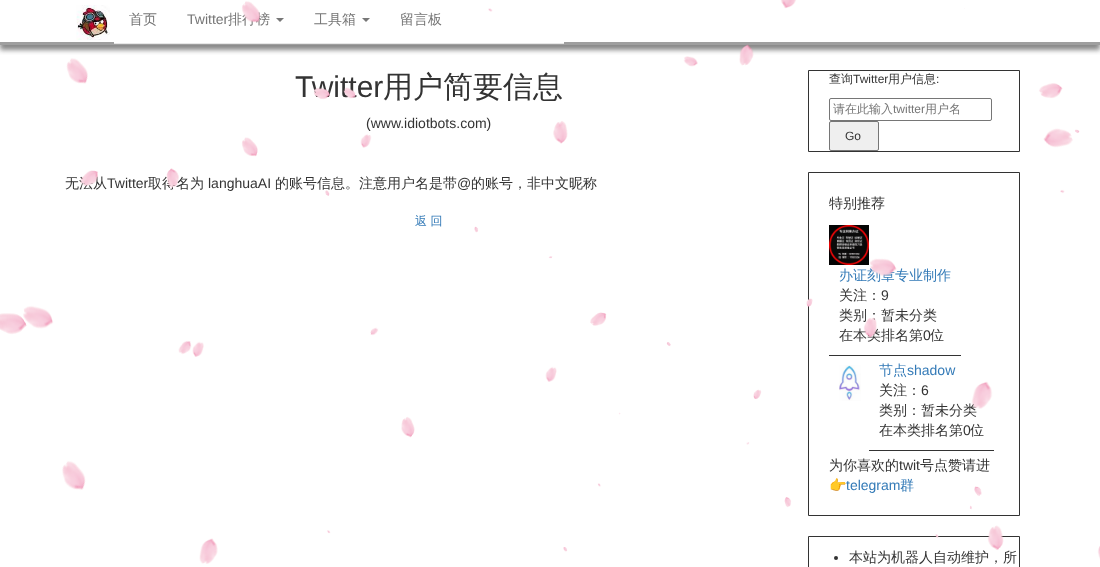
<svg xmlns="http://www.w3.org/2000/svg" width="1100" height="567">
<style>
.a{font:500 14px WenQuanYi Zen Hei;fill:#757575}
.b{font:14px Liberation Sans;fill:#757575}
.c{font:30px Liberation Sans;fill:#333}
.d{font:500 30px WenQuanYi Zen Hei;fill:#333}
.e{font:14px Liberation Sans;fill:#333}
.f{font:500 14px WenQuanYi Zen Hei;fill:#333}
.g{font:500 12px WenQuanYi Zen Hei;fill:#337ab7}
.h{font:500 12px WenQuanYi Zen Hei;fill:#333}
.i{font:12px Liberation Sans;fill:#333}
.j{font:500 12px WenQuanYi Zen Hei;fill:#757575}
.k{font:12px Liberation Sans;fill:#757575}
.l{font:500 14px WenQuanYi Zen Hei;fill:#337ab7}
.m{font:14px Liberation Sans;fill:#337ab7}
.n{font:14px Noto Color Emoji;fill:#337ab7}
</style>
<defs>
<clipPath id="clip1"><path d="M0 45h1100v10H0z"/></clipPath>
</defs>
<rect width="100%" height="100%" fill="#fff"/>
<g clip-path="url(#clip1)">
<path fill="#888" filter="blur(2.5px)" d="M0 5h1100v45H0z"/>
</g>
<path fill="#9f9f9f" d="M0 42h1100v3H0z"/>
<image href="2.png" x="76" y="5" width="34" height="35"/>
<path fill="#fff" d="M114 42h450v1H114z"/>
<path fill="#e7e7e7" d="M114 43h450v1H114z"/>
<path fill="#777" d="M276 18h8l-4 4z"/>
<path fill="#777" d="M362 18h8l-4 4z"/>
<path fill="none" stroke="#333" d="M808.5 70.5h211v81H808.5z"/>
<rect fill="none" stroke="#767676" x="829.5" y="98.5" width="162" height="22" rx="1.5"/>
<rect fill="#efefef" stroke="#767676" x="829.5" y="121.5" width="49" height="29" rx="1.5"/>
<path fill="none" stroke="#333" d="M808.5 172.5h211v343H808.5z"/>
<image href="3.png" x="829" y="225" width="40" height="40"/>
<path fill="#333" d="M829 355h132v1H829z"/>
<image href="4.png" x="839" y="365" width="22" height="36"/>
<path fill="#333" d="M869 450h125v1H869z"/>
<path fill="none" stroke="#333" d="M808.5 536.5h211v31H808.5z"/>
<circle fill="#333" cx="836" cy="558" r="2"/>
<text class="a" x="129" y="24">首页</text>
<text class="b" x="187" y="24">Twitter</text>
<text class="a" x="228" y="24">排行榜</text>
<text class="a" x="314" y="24">工具箱</text>
<text class="a" x="400" y="24">留言板</text>
<text class="c" x="295" y="97">Twitter</text>
<text class="d" x="383" y="97">用户简要信息</text>
<text class="e" x="366" y="128">(www.idiotbots.com)</text>
<text class="f" x="65" y="188">无法从</text>
<text class="e" x="107" y="188">Twitter</text>
<text class="f" x="148" y="188">取得名为</text>
<text class="e" x="208" y="188">langhuaAI</text>
<text class="f" x="275" y="188">的账号信息。注意用户名是带</text>
<text class="e" x="457" y="188">@</text>
<text class="f" x="471" y="188">的账号，非中文昵称</text>
<text class="g" x="415" y="225">返 回</text>
<text class="h" x="829" y="83">查询</text>
<text class="i" x="853" y="83">Twitter</text>
<text class="h" x="888" y="83">用户信息</text>
<text class="i" x="936" y="83">:</text>
<text class="j" x="833" y="113">请在此输入</text>
<text class="k" x="893" y="113">twitter</text>
<text class="j" x="925" y="113">用户名</text>
<text class="i" x="845" y="140">Go</text>
<text class="f" x="829" y="208">特别推荐</text>
<text class="l" x="839" y="280">办证刻章专业制作</text>
<text class="f" x="839" y="300">关注：</text>
<text class="e" x="881" y="300">9</text>
<text class="f" x="839" y="320">类别：暂未分类</text>
<text class="f" x="839" y="340">在本类排名第</text>
<text class="e" x="923" y="340">0</text>
<text class="f" x="930" y="340">位</text>
<text class="l" x="879" y="375">节点</text>
<text class="m" x="907" y="375">shadow</text>
<text class="f" x="879" y="395">关注：</text>
<text class="e" x="921" y="395">6</text>
<text class="f" x="879" y="415">类别：暂未分类</text>
<text class="f" x="879" y="435">在本类排名第</text>
<text class="e" x="963" y="435">0</text>
<text class="f" x="970" y="435">位</text>
<text class="f" x="829" y="470">为你喜欢的</text>
<text class="e" x="899" y="470">twit</text>
<text class="f" x="920" y="470">号点赞请进</text>
<text class="n" x="829" y="490">👉</text>
<text class="m" x="846" y="490">telegram</text>
<text class="l" x="900" y="490">群</text>
<text class="f" x="849" y="562">本站为机器人自动维护，所</text>
<image href="1.png" x="0" y="0" width="1100" height="564"/>
</svg>
